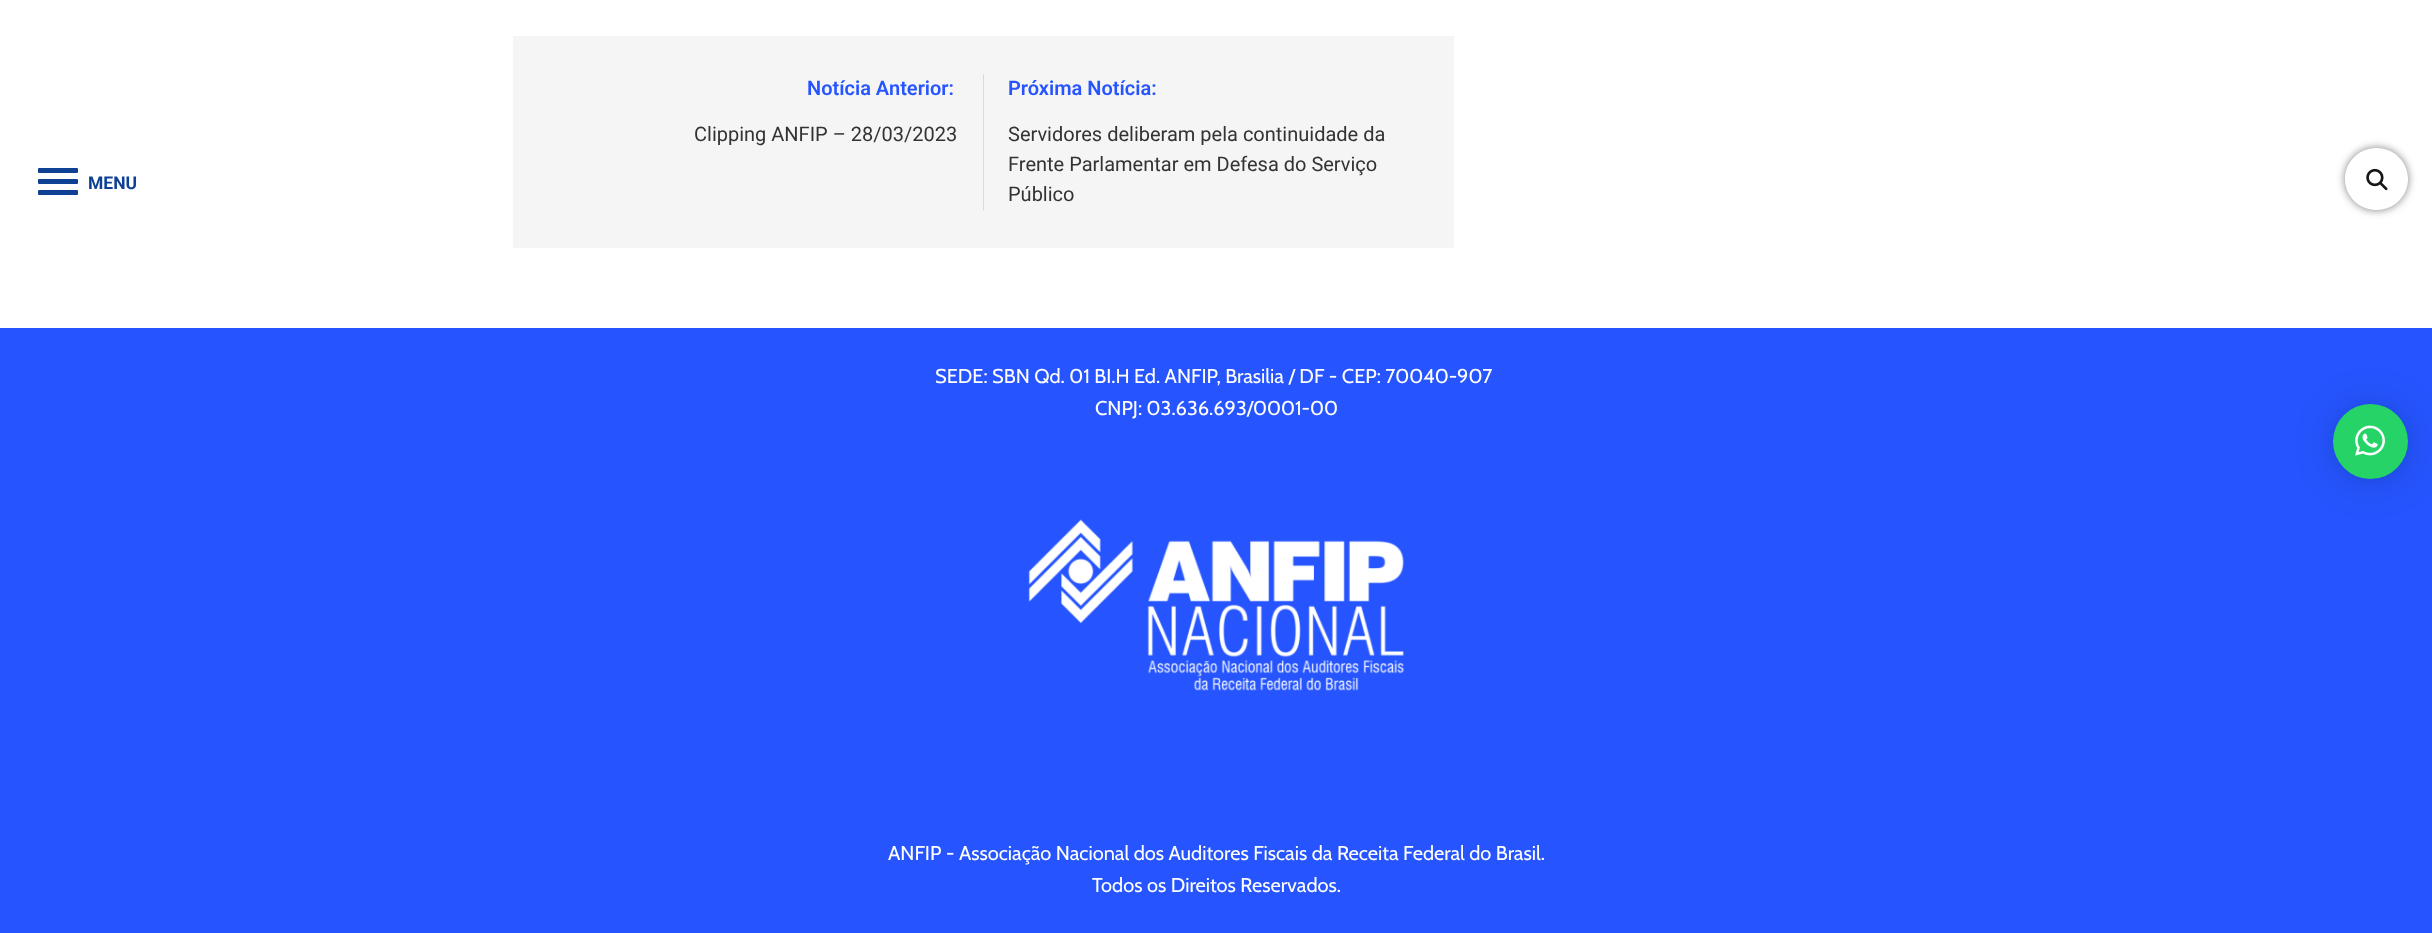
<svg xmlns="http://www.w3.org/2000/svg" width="2432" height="933">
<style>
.a{font:bold 17.5px Roboto;fill:#0e4194}
.b{font:600 20px Roboto;fill:#2655ff}
.c{font:20px Roboto;fill:#333}
.d{font:20px Cabin;fill:#fff}
</style>
<defs>
<clipPath id="clip1"><path d="M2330 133h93v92h-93zm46 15h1c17 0 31 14 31 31c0 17-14 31-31 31h-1c-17 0-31-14-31-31c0-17 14-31 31-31z" clip-rule="evenodd"/></clipPath>
</defs>
<rect width="100%" height="100%" fill="#fff"/>
<rect fill="#0e4194" x="38" y="168" width="40" height="5" rx="1"/>
<rect fill="#0e4194" x="38" y="179" width="40" height="5" rx="1"/>
<rect fill="#0e4194" x="38" y="190" width="40" height="5" rx="1"/>
<g clip-path="url(#clip1)">
<rect fill="#00000080" filter="blur(4.5px)" x="2345" y="148" width="63" height="62" rx="31"/>
</g>
<image href="1.png" x="2366" y="168" width="22" height="23"/>
<path fill="#f5f5f5" d="M513 36h941v212H513z"/>
<path fill="#d9d9d9" d="M983 74h1v136H983z"/>
<path fill="#2655ff" d="M0 328h2432v605H0z"/>
<image href="2.png" x="1028" y="519" width="377" height="172"/>
<rect fill="#00000029" filter="blur(20px)" x="2333" y="406" width="75" height="75" rx="37.5"/>
<rect fill="#0000000f" filter="blur(4px)" x="2333" y="405" width="75" height="75" rx="37.5"/>
<circle fill="#25d366" cx="2370.5" cy="441.5" r="37.5"/>
<image href="3.png" x="2355" y="425" width="30" height="31"/>
<text class="a" x="88" y="189">MENU</text>
<text class="b" x="807" y="95">Notícia Anterior:</text>
<text class="c" x="694" y="141">Clipping ANFIP – 28/03/2023</text>
<text class="b" x="1008" y="95">Próxima Notícia:</text>
<text class="c" x="1008" y="141">Servidores deliberam pela continuidade da</text>
<text class="c" x="1008" y="171">Frente Parlamentar em Defesa do Serviço</text>
<text class="c" x="1008" y="201">Público</text>
<text class="d" x="935" y="383">SEDE: SBN Qd. 01 BI.H Ed. ANFIP, Brasilia / DF - CEP: 70040-907</text>
<text class="d" x="1095" y="415">CNPJ: 03.636.693/0001-00</text>
<text class="d" x="888" y="860">ANFIP - Associação Nacional dos Auditores Fiscais da Receita Federal do Brasil.</text>
<text class="d" x="1092" y="892">Todos os Direitos Reservados.</text>
</svg>
